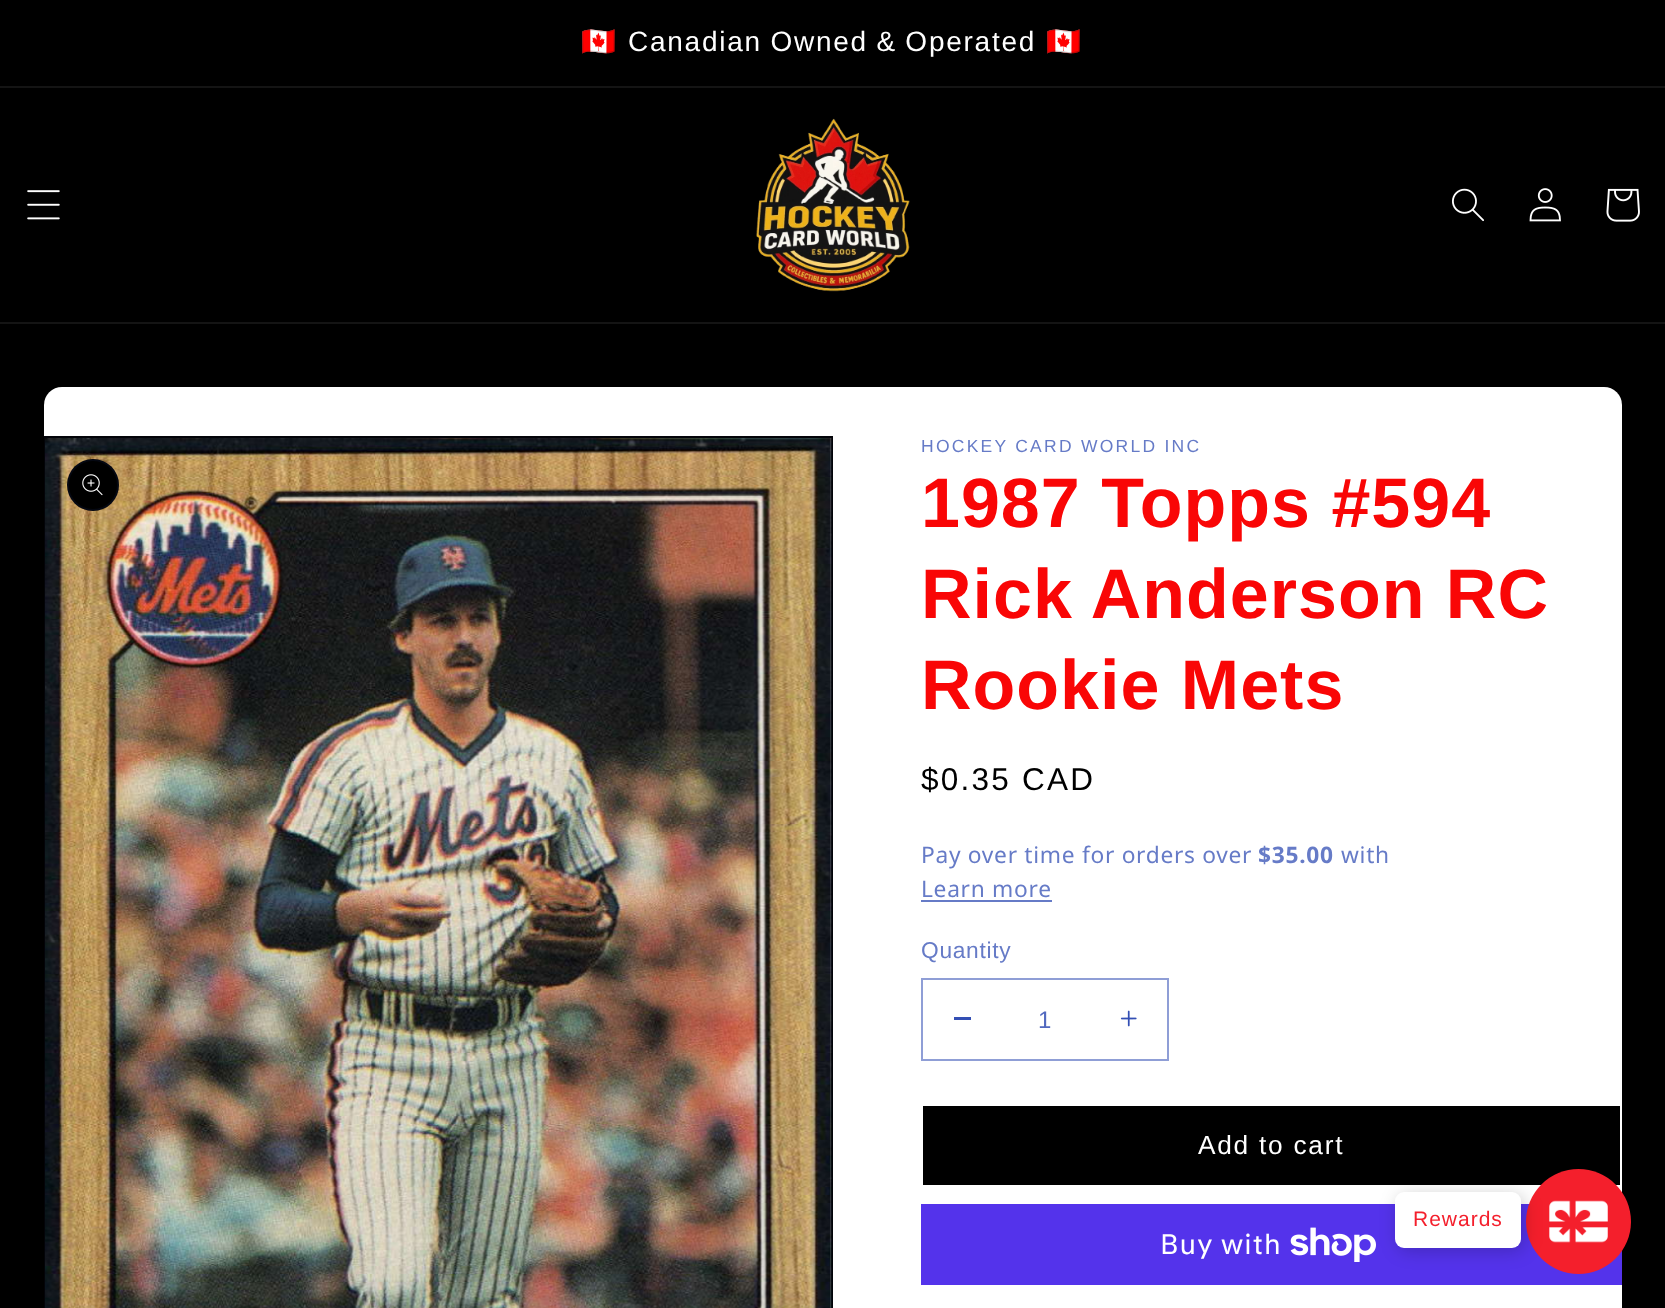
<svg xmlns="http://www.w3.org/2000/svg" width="1665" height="1308">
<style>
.a{font:28px Noto Color Emoji;letter-spacing:1.75px;fill:#fff}
.b{font:28px Liberation Sans;letter-spacing:1.75px;fill:#fff}
.c{font:17.5px Liberation Sans;letter-spacing:2.25px;fill:#667bc7}
.d{font:bold 70px Liberation Sans;letter-spacing:1px;fill:#f90606}
.e{font:31.5px Liberation Sans;letter-spacing:2.25px;fill:#000}
.f{font:22.75px Noto Sans;letter-spacing:0.7px;fill:#667bc7}
.g{font:bold 22.75px Noto Sans;letter-spacing:0.7px;fill:#667bc7}
.h{font:22.75px Liberation Sans;letter-spacing:0.7px;fill:#667bc7}
.i{font:24px Liberation Sans;fill:#5269bf}
.j{font:26.25px Liberation Sans;letter-spacing:1.75px;fill:#fff}
.k{font:28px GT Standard;letter-spacing:1px;fill:#fff}
.l{font:21px Liberation Sans;letter-spacing:1px;fill:#f41f2c}
</style>
<rect width="100%" height="100%" fill="#000"/>
<path fill="#141414" d="M0 86h1665v2H0z"/>
<path fill="#141414" d="M0 322h1665v2H0z"/>
<image href="1.png" x="27" y="190" width="33" height="30"/>
<image href="2.png" x="756" y="118" width="154" height="174"/>
<image href="3.png" x="1452" y="188" width="32" height="34"/>
<image href="4.png" x="1529" y="188" width="32" height="34"/>
<image href="5.png" x="1606" y="188" width="34" height="34"/>
<rect fill="#fff" x="44" y="387" width="1578" height="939" rx="18"/>
<path fill="none" stroke="#030409" stroke-width="2" d="M45 437h787v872H45z"/>
<image href="6.png" x="45" y="438" width="787" height="870"/>
<circle fill="#000" cx="93" cy="485" r="26"/>
<circle fill="none" stroke="#334fb41a" stroke-width="2" cx="93" cy="485" r="25"/>
<image href="7.png" x="82" y="474" width="21" height="22"/>
<path fill="#667bc7" d="M921 900h131v2H921z"/>
<path fill="#334fb4" d="M954 1017h17v3H954z"/>
<image href="8.png" x="1120" y="1010" width="17" height="17"/>
<path fill="none" stroke="#8f9ed6" stroke-width="2" d="M922 979h246v81H922z"/>
<path fill="#000" d="M923 1106h697v79H923z"/>
<path fill="#5433eb" d="M921 1204h701v81H921z"/>
<image href="9.png" x="1290" y="1227" width="86" height="35"/>
<circle fill="#f41f2c" cx="1578.5" cy="1221.5" r="52.5"/>
<image href="10.png" x="1549" y="1200" width="59" height="43"/>
<rect fill="#00000033" filter="blur(9px)" x="1398" y="1195" width="126" height="56" rx="9"/>
<rect fill="#fff" x="1395" y="1192" width="126" height="56" rx="9"/>
<text class="a" x="581" y="51">🇨🇦</text>
<text class="b" x="628" y="51" word-spacing="-1">Canadian Owned &amp; Operated</text>
<text class="a" x="1046" y="51">🇨🇦</text>
<text class="c" x="921" y="452">HOCKEY CARD WORLD INC</text>
<text class="d" x="921" y="527">1987 Topps #594</text>
<text class="d" x="921" y="618">Rick Anderson RC</text>
<text class="d" x="921" y="709">Rookie Mets</text>
<text class="e" x="921" y="790">$0.35 CAD</text>
<text class="f" x="921" y="863">Pay over time for orders over</text>
<text class="g" x="1258" y="863">$35.00</text>
<text class="f" x="1341" y="863">with</text>
<text class="f" x="921" y="897">Learn more</text>
<text class="h" x="921" y="958">Quantity</text>
<text class="i" x="1038" y="1028">1</text>
<text class="j" x="1198" y="1154">Add to cart</text>
<text class="k" x="1160" y="1254">Buy with</text>
<text class="l" x="1413" y="1226">Rewards</text>
</svg>
